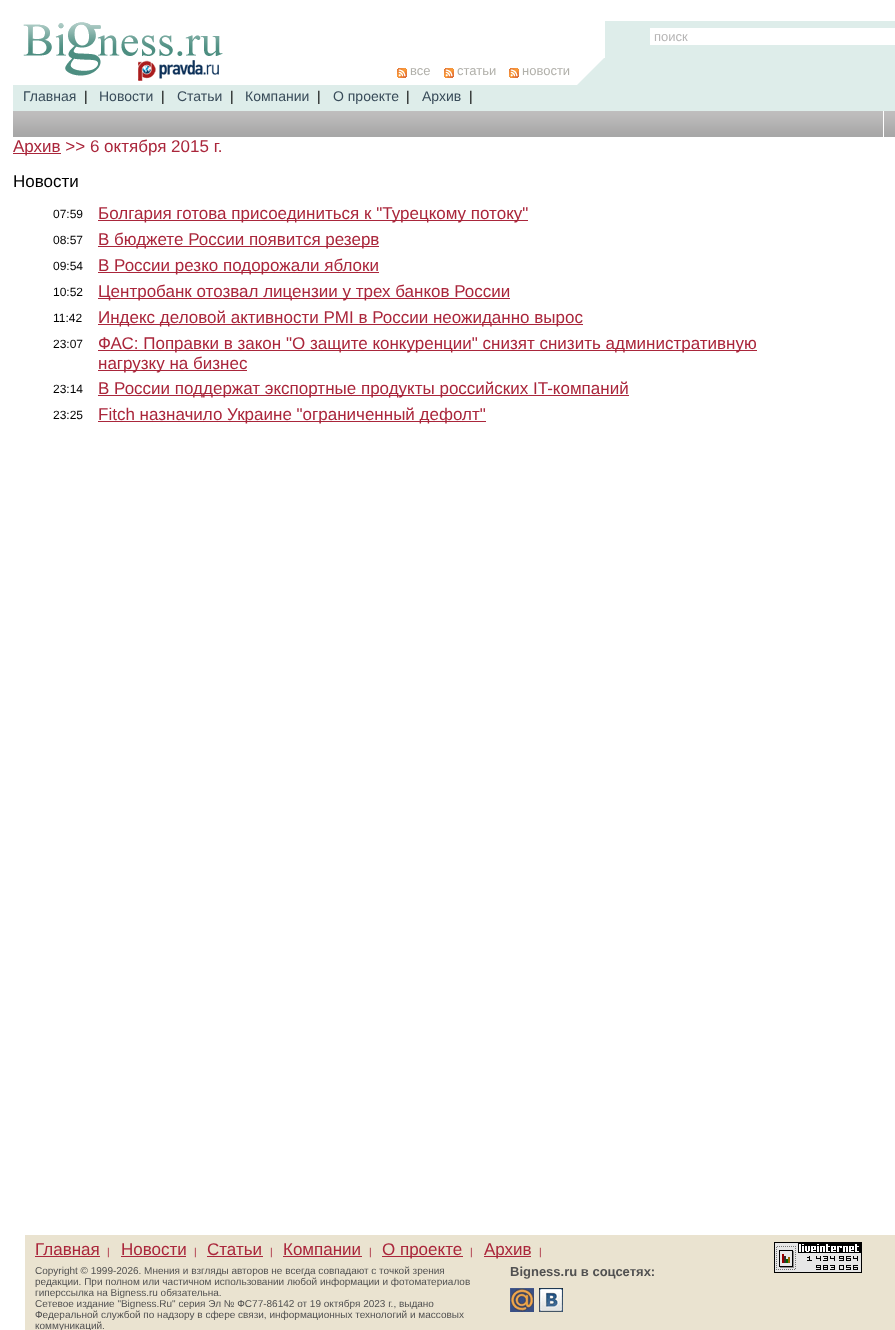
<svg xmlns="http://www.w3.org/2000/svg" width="895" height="1330">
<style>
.a{font:13px Liberation Sans;fill:#b6b5b5}
.b{font:13px Liberation Sans;fill:#b1b0aa}
.c{font:14px Liberation Sans;fill:#384b59}
.d{font:14px Liberation Sans;fill:#000}
.e{font:17px Liberation Sans;fill:#aa263b}
.f{font:17px Liberation Sans;fill:#000}
.g{font:12px Liberation Sans;fill:#000}
.h{font:10px Liberation Sans;fill:#aa263b}
.i{font:10px Liberation Sans;fill:#515151}
.j{font:bold 13px Liberation Sans;fill:#515151}
</style>
<rect width="100%" height="100%" fill="#fff"/>
<image href="1.png" x="23" y="22" width="200" height="59"/>
<path fill="#deedea" d="M605 21h290v90H605z"/>
<path fill="#fff" d="M650 28h245v17H650z"/>
<image href="2.png" x="577" y="58" width="28" height="27"/>
<image href="3.png" x="397" y="68" width="10" height="10"/>
<image href="3.png" x="444" y="68" width="10" height="10"/>
<image href="3.png" x="509" y="68" width="10" height="10"/>
<path fill="#deedea" d="M13 85h592v26H13z"/>
<image href="4.png" x="13" y="111" width="882" height="26"/>
<path fill="#fff" d="M883 111h1v26H883z"/>
<path fill="#aa263b" d="M13 153h48v1H13z"/>
<path fill="#aa263b" d="M98 220h430v1H98z"/>
<path fill="#aa263b" d="M98 246h281v1H98z"/>
<path fill="#aa263b" d="M98 272h281v1H98z"/>
<path fill="#aa263b" d="M98 298h412v1H98z"/>
<path fill="#aa263b" d="M98 324h485v1H98z"/>
<path fill="#aa263b" d="M98 350h659v1H98z"/>
<path fill="#aa263b" d="M98 370h149v1H98z"/>
<path fill="#aa263b" d="M98 395h531v1H98z"/>
<path fill="#aa263b" d="M98 421h388v1H98z"/>
<path fill="#eae3d0" d="M25 1235h870v95H25z"/>
<path fill="#aa263b" d="M35 1256h65v1H35z"/>
<path fill="#aa263b" d="M121 1256h65v1H121z"/>
<path fill="#aa263b" d="M207 1256h56v1H207z"/>
<path fill="#aa263b" d="M283 1256h79v1H283z"/>
<path fill="#aa263b" d="M382 1256h81v1H382z"/>
<path fill="#aa263b" d="M484 1256h47v1H484z"/>
<image href="5.png" x="774" y="1242" width="88" height="31"/>
<image href="6.png" x="510" y="1288" width="24" height="24"/>
<image href="7.png" x="539" y="1288" width="24" height="24"/>
<text class="a" x="654" y="41">поиск</text>
<text class="b" x="410" y="75">все</text>
<text class="b" x="457" y="75">статьи</text>
<text class="b" x="522" y="75">новости</text>
<text class="c" x="23" y="101">Главная</text>
<text class="d" x="84" y="101">|</text>
<text class="c" x="99" y="101">Новости</text>
<text class="d" x="161" y="101">|</text>
<text class="c" x="177" y="101">Статьи</text>
<text class="d" x="230" y="101">|</text>
<text class="c" x="245" y="101">Компании</text>
<text class="d" x="317" y="101">|</text>
<text class="c" x="333" y="101">О проекте</text>
<text class="d" x="406" y="101">|</text>
<text class="c" x="422" y="101">Архив</text>
<text class="d" x="469" y="101">|</text>
<text class="e" x="13" y="152">Архив &gt;&gt; 6 октября 2015 г.</text>
<text class="f" x="13" y="187">Новости</text>
<text class="g" x="53" y="218">07:59</text>
<text class="e" x="98" y="219">Болгария готова присоединиться к "Турецкому потоку"</text>
<text class="g" x="53" y="244">08:57</text>
<text class="e" x="98" y="245">В бюджете России появится резерв</text>
<text class="g" x="53" y="270">09:54</text>
<text class="e" x="98" y="271">В России резко подорожали яблоки</text>
<text class="g" x="53" y="296">10:52</text>
<text class="e" x="98" y="297">Центробанк отозвал лицензии у трех банков России</text>
<text class="g" x="53" y="322">11:42</text>
<text class="e" x="98" y="323">Индекс деловой активности PMI в России неожиданно вырос</text>
<text class="g" x="53" y="348">23:07</text>
<text class="e" x="98" y="349">ФАС: Поправки в закон "О защите конкуренции" снизят снизить административную</text>
<text class="e" x="98" y="369">нагрузку на бизнес</text>
<text class="g" x="53" y="393">23:14</text>
<text class="e" x="98" y="394">В России поддержат экспортные продукты российских IT-компаний</text>
<text class="g" x="53" y="419">23:25</text>
<text class="e" x="98" y="420">Fitch назначило Украине "ограниченный дефолт"</text>
<text class="e" x="35" y="1255">Главная</text>
<text class="h" x="107" y="1255">|</text>
<text class="e" x="121" y="1255">Новости</text>
<text class="h" x="194" y="1255">|</text>
<text class="e" x="207" y="1255">Статьи</text>
<text class="h" x="270" y="1255">|</text>
<text class="e" x="283" y="1255">Компании</text>
<text class="h" x="369" y="1255">|</text>
<text class="e" x="382" y="1255">О проекте</text>
<text class="h" x="470" y="1255">|</text>
<text class="e" x="484" y="1255">Архив</text>
<text class="h" x="539" y="1255">|</text>
<text class="i" x="35" y="1274">Copyright © 1999-2026. Мнения и взгляды авторов не всегда совпадают с точкой зрения</text>
<text class="i" x="35" y="1285">редакции. При полном или частичном использовании любой информации и фотоматериалов</text>
<text class="i" x="35" y="1296">гиперссылка на Bigness.ru обязательна.</text>
<text class="i" x="35" y="1307">Сетевое издание "Bigness.Ru" серия Эл № ФС77-86142 от 19 октября 2023 г., выдано</text>
<text class="i" x="35" y="1318">Федеральной службой по надзору в сфере связи, информационных технологий и массовых</text>
<text class="i" x="35" y="1329">коммуникаций.</text>
<text class="j" x="510" y="1276">Bigness.ru в соцсетях:</text>
</svg>
